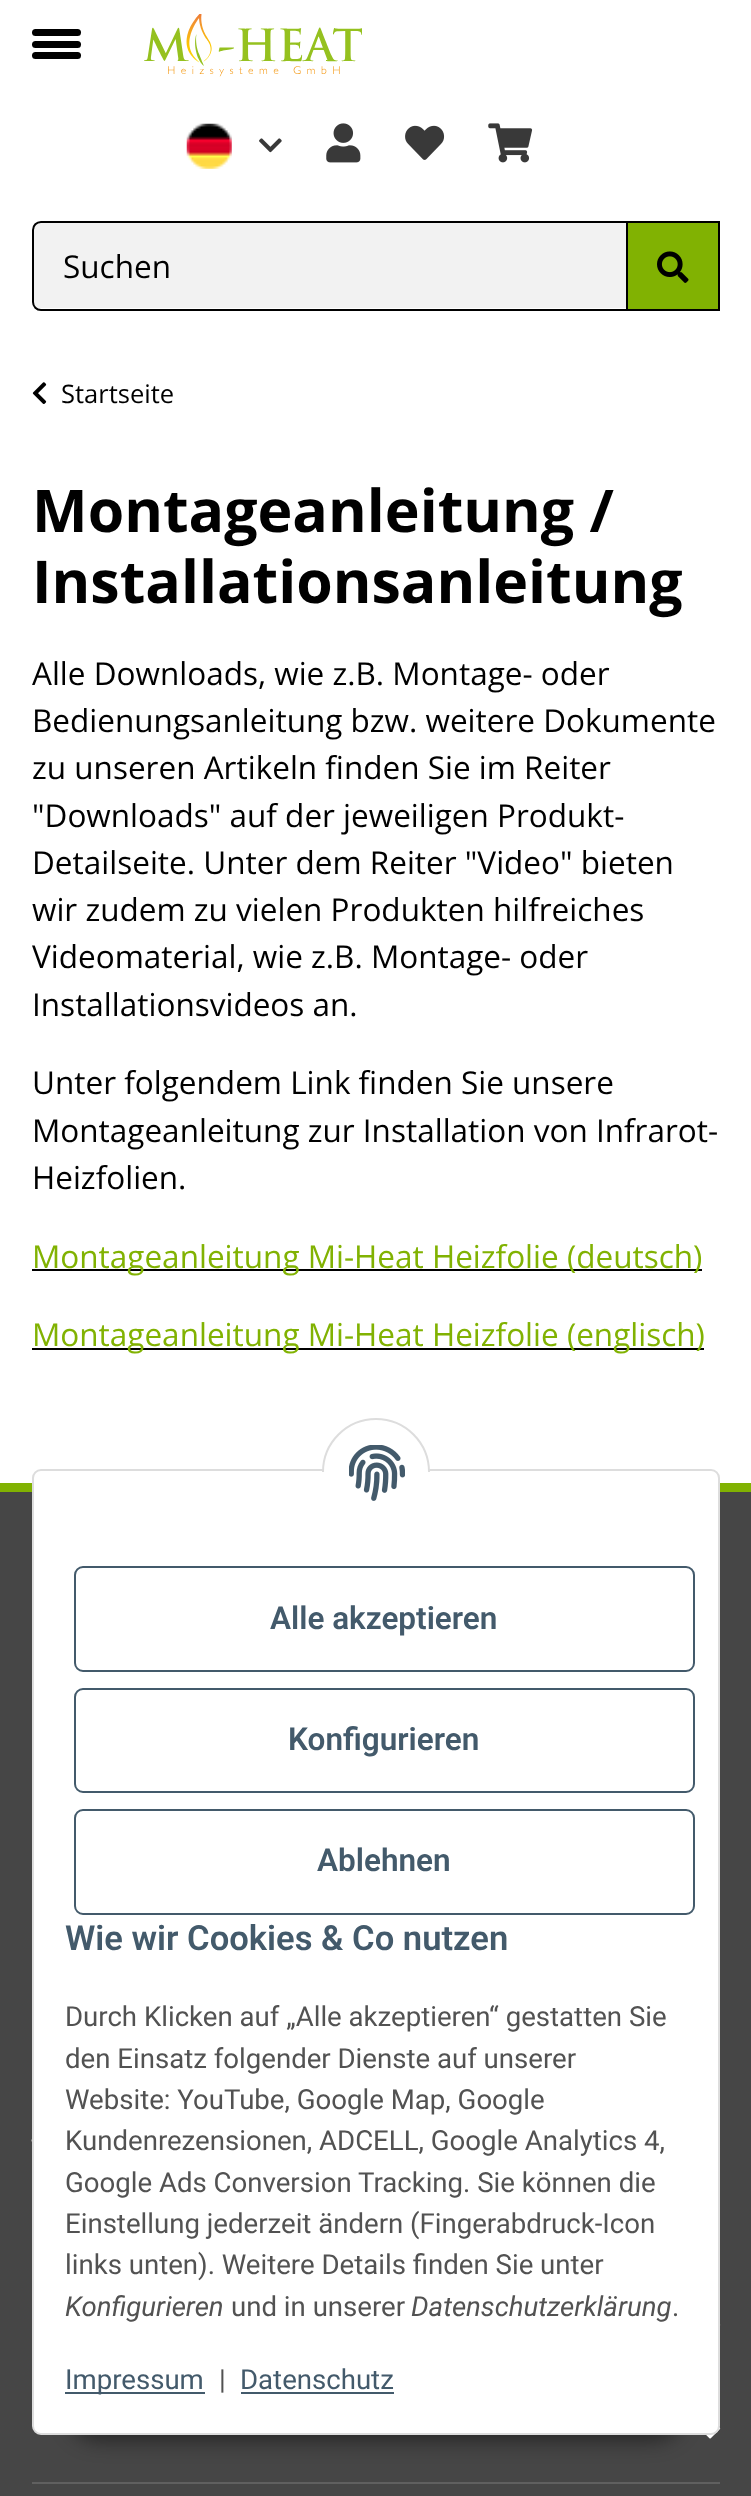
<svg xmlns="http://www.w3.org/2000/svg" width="751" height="2496">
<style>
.a{font:31.5px Open Sans;fill:#000}
.b{font:25.5px Open Sans;fill:#000}
.c{font:bold 59px Open Sans;fill:#000}
.d{font:31.5px Open Sans;fill:#81b202}
.e{font:600 31.5px Roboto;fill:#435a6b}
.f{font:600 34.6px Roboto;fill:#435a6b}
.g{font:27.6px Roboto;fill:#525252}
.h{font:italic 27.6px Roboto;fill:#525252}
.i{font:27.6px Roboto;fill:#435a6b}
</style>
<rect width="100%" height="100%" fill="#fff"/>
<rect fill="#000" x="32" y="41" width="49" height="7" rx="3.5"/>
<rect fill="#000" x="32" y="29" width="49" height="7" rx="3.5"/>
<rect fill="#000" x="32" y="52" width="49" height="7" rx="3.5"/>
<image href="1.png" x="144" y="14" width="218" height="63"/>
<image href="2.png" x="186" y="123" width="46" height="46"/>
<image href="3.png" x="259" y="138" width="23" height="15"/>
<image href="4.png" x="326" y="123" width="35" height="40"/>
<image href="5.png" x="405" y="125" width="40" height="35"/>
<image href="6.png" x="488" y="123" width="45" height="40"/>
<path fill="#f2f2f2" d="M40 223h586v85h-586c-3.5 0-6-2.5-6-6v-73c0-3.5 2.5-6 6-6z"/>
<path fill="none" stroke="#000" stroke-width="2" d="M41 222h586v88h-586c-4.5 0-8-3.5-8-8v-72c0-4.5 3.5-8 8-8z"/>
<path fill="#81b202" stroke="#000" stroke-width="2" d="M627 222h92v88H627z"/>
<image href="7.png" x="657" y="251" width="32" height="32"/>
<image href="8.png" x="32" y="382" width="15" height="22"/>
<path fill="#000" d="M32 1269h670v2H32z"/>
<path fill="#000" d="M32 1348h672v2H32z"/>
<path fill="#464646" d="M0 1492h751v1004H0z"/>
<path fill="#81b202" d="M0 1483h751v9H0z"/>
<image href="9.png" x="31" y="2139" width="1" height="3"/>
<image href="10.png" x="720" y="2324" width="1" height="2"/>
<image href="11.png" x="706" y="2427" width="15" height="12"/>
<path fill="#606060" d="M32 2482h688v2H32z"/>
<rect fill="#00000073" filter="blur(10px)" x="68" y="2378" width="616" height="63" rx="31.5"/>
<rect fill="#fff" stroke="#ddd" stroke-width="2" x="33" y="1470" width="686" height="964" rx="8"/>
<circle fill="#fff" stroke="#ddd" stroke-width="2" cx="376" cy="1472" r="53"/>
<path fill="#fff" d="M322 1472h108v54H322z"/>
<image href="12.png" x="349" y="1445" width="56" height="56"/>
<rect fill="none" stroke="#435a6b" stroke-width="2" x="75" y="1567" width="619" height="104" rx="8"/>
<rect fill="none" stroke="#435a6b" stroke-width="2" x="75" y="1689" width="619" height="103" rx="8"/>
<rect fill="none" stroke="#435a6b" stroke-width="2" x="75" y="1810" width="619" height="104" rx="8"/>
<path fill="#435a6b" d="M65 2392h140v2H65z"/>
<path fill="#435a6b" d="M241 2392h153v2H241z"/>
<text class="a" x="63" y="278">Suchen</text>
<text class="b" x="61" y="403">Startseite</text>
<text class="c" x="32" y="532">Montageanleitung /</text>
<text class="c" x="32" y="603">Installationsanleitung</text>
<text class="a" x="32" y="685">Alle Downloads, wie z.B. Montage- oder</text>
<text class="a" x="32" y="732">Bedienungsanleitung bzw. weitere Dokumente</text>
<text class="a" x="32" y="779">zu unseren Artikeln finden Sie im Reiter</text>
<text class="a" x="32" y="827">"Downloads" auf der jeweiligen Produkt-</text>
<text class="a" x="32" y="874">Detailseite. Unter dem Reiter "Video" bieten</text>
<text class="a" x="32" y="921">wir zudem zu vielen Produkten hilfreiches</text>
<text class="a" x="32" y="968">Videomaterial, wie z.B. Montage- oder</text>
<text class="a" x="32" y="1016">Installationsvideos an.</text>
<text class="a" x="32" y="1094">Unter folgendem Link finden Sie unsere</text>
<text class="a" x="32" y="1142">Montageanleitung zur Installation von Infrarot-</text>
<text class="a" x="32" y="1189">Heizfolien.</text>
<text class="d" x="32" y="1268">Montageanleitung Mi-Heat Heizfolie (deutsch)</text>
<text class="d" x="32" y="1346">Montageanleitung Mi-Heat Heizfolie (englisch)</text>
<text class="e" x="270" y="1629">Alle akzeptieren</text>
<text class="e" x="288" y="1750">Konfigurieren</text>
<text class="e" x="317" y="1871">Ablehnen</text>
<text class="f" x="65" y="1950">Wie wir Cookies &amp; Co nutzen</text>
<text class="g" x="65" y="2026">Durch Klicken auf „Alle akzeptieren“ gestatten Sie</text>
<text class="g" x="65" y="2068">den Einsatz folgender Dienste auf unserer</text>
<text class="g" x="65" y="2109">Website: YouTube, Google Map, Google</text>
<text class="g" x="65" y="2150">Kundenrezensionen, ADCELL, Google Analytics 4,</text>
<text class="g" x="65" y="2192">Google Ads Conversion Tracking. Sie können die</text>
<text class="g" x="65" y="2233">Einstellung jederzeit ändern (Fingerabdruck-Icon</text>
<text class="g" x="65" y="2274">links unten). Weitere Details finden Sie unter</text>
<text class="h" x="65" y="2316">Konfigurieren</text>
<text class="g" x="231" y="2316">und in unserer</text>
<text class="h" x="411" y="2316">Datenschutzerklärung</text>
<text class="g" x="672" y="2316">.</text>
<text class="i" x="65" y="2389">Impressum</text>
<text class="g" x="219" y="2389">|</text>
<text class="i" x="240" y="2389">Datenschutz</text>
</svg>
